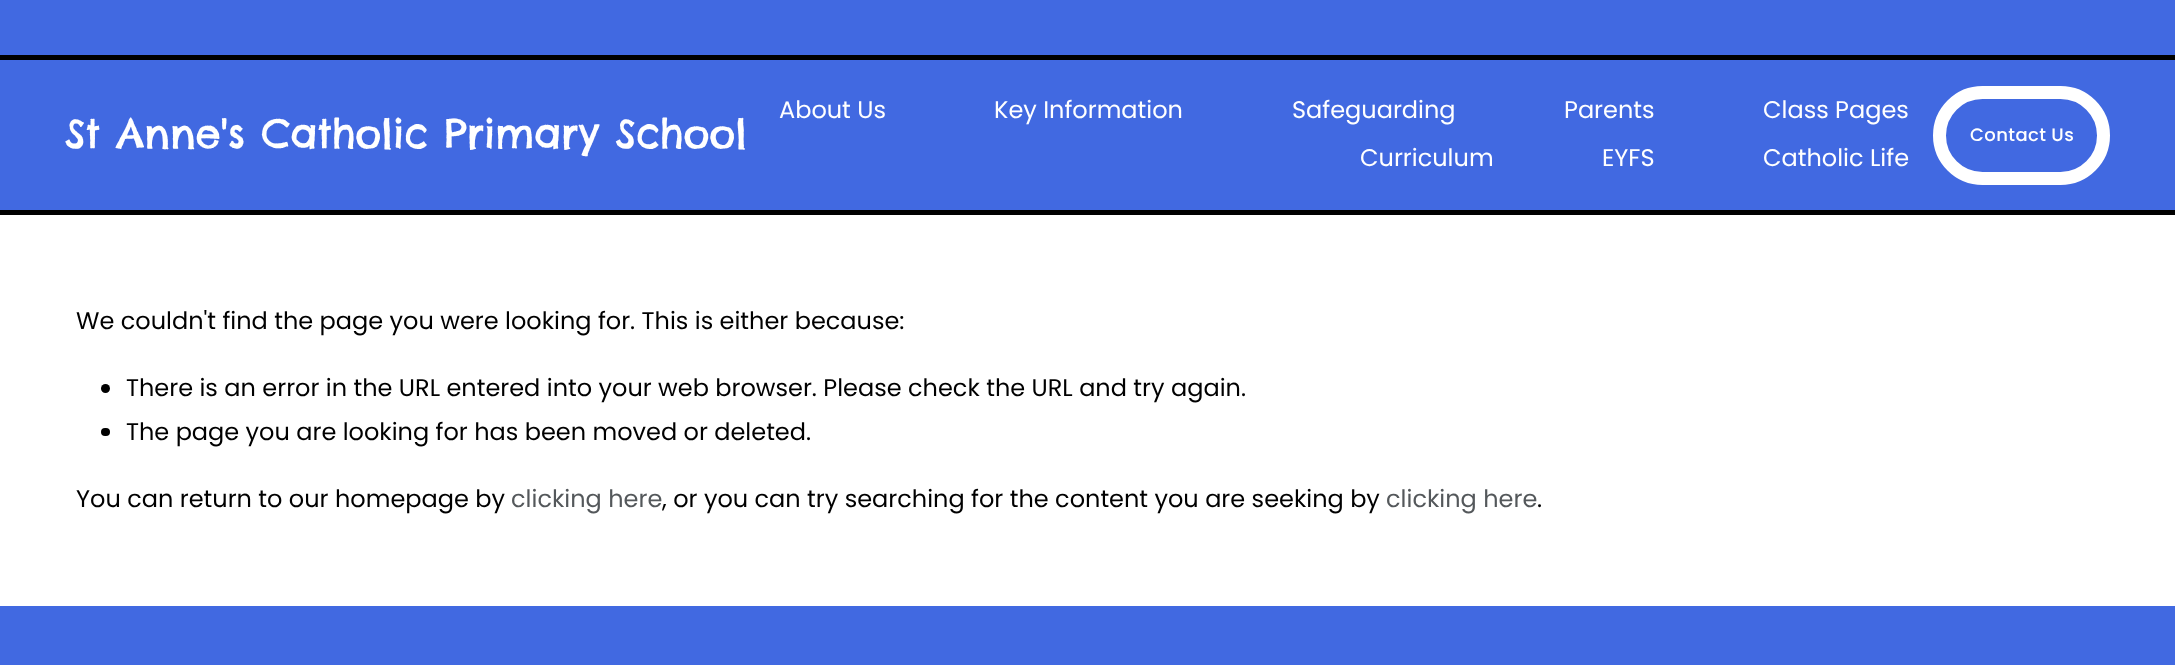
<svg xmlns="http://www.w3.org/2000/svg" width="2175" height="665">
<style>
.a{font:40px Chelsea Market;fill:#fff}
.b{font:24px Poppins;fill:#fff}
.c{font:500 18px Poppins;letter-spacing:0.4px;fill:#fff}
.d{font:24px Poppins;fill:#000}
.e{font:24px Poppins;fill:#54585b}
</style>
<rect width="100%" height="100%" fill="#fff"/>
<path fill="#4169e1" d="M0 0h2175v210H0z"/>
<path fill="#000" d="M0 55h2175v5H0z"/>
<path fill="#000" d="M0 210h2175v5H0z"/>
<rect fill="none" stroke="#fff" stroke-width="13" x="1939.5" y="92.5" width="164" height="86" rx="43"/>
<circle fill="#000" cx="105.5" cy="388.5" r="4.5"/>
<rect fill="#000" x="101" y="428" width="9" height="8" rx="4"/>
<path fill="#4169e1" d="M0 606h2175v59H0z"/>
<text class="a" x="65" y="148">St Anne's Catholic Primary School</text>
<text class="b" x="779" y="118">About Us</text>
<text class="b" x="994" y="118">Key Information</text>
<text class="b" x="1292" y="118">Safeguarding</text>
<text class="b" x="1564" y="118">Parents</text>
<text class="b" x="1763" y="118">Class Pages</text>
<text class="b" x="1360" y="166">Curriculum</text>
<text class="b" x="1602" y="166">EYFS</text>
<text class="b" x="1763" y="166">Catholic Life</text>
<text class="c" x="1970" y="141">Contact Us</text>
<text class="d" x="76" y="329">We couldn't find the page you were looking for. This is either because:</text>
<text class="d" x="126" y="396">There is an error in the URL entered into your web browser. Please check the URL and try again.</text>
<text class="d" x="126" y="440">The page you are looking for has been moved or deleted.</text>
<text class="d" x="76" y="507">You can return to our homepage by</text>
<text class="e" x="511" y="507">clicking here</text>
<text class="d" x="662" y="507">, or you can try searching for the content you are seeking by</text>
<text class="e" x="1386" y="507">clicking here</text>
<text class="d" x="1537" y="507">.</text>
</svg>
